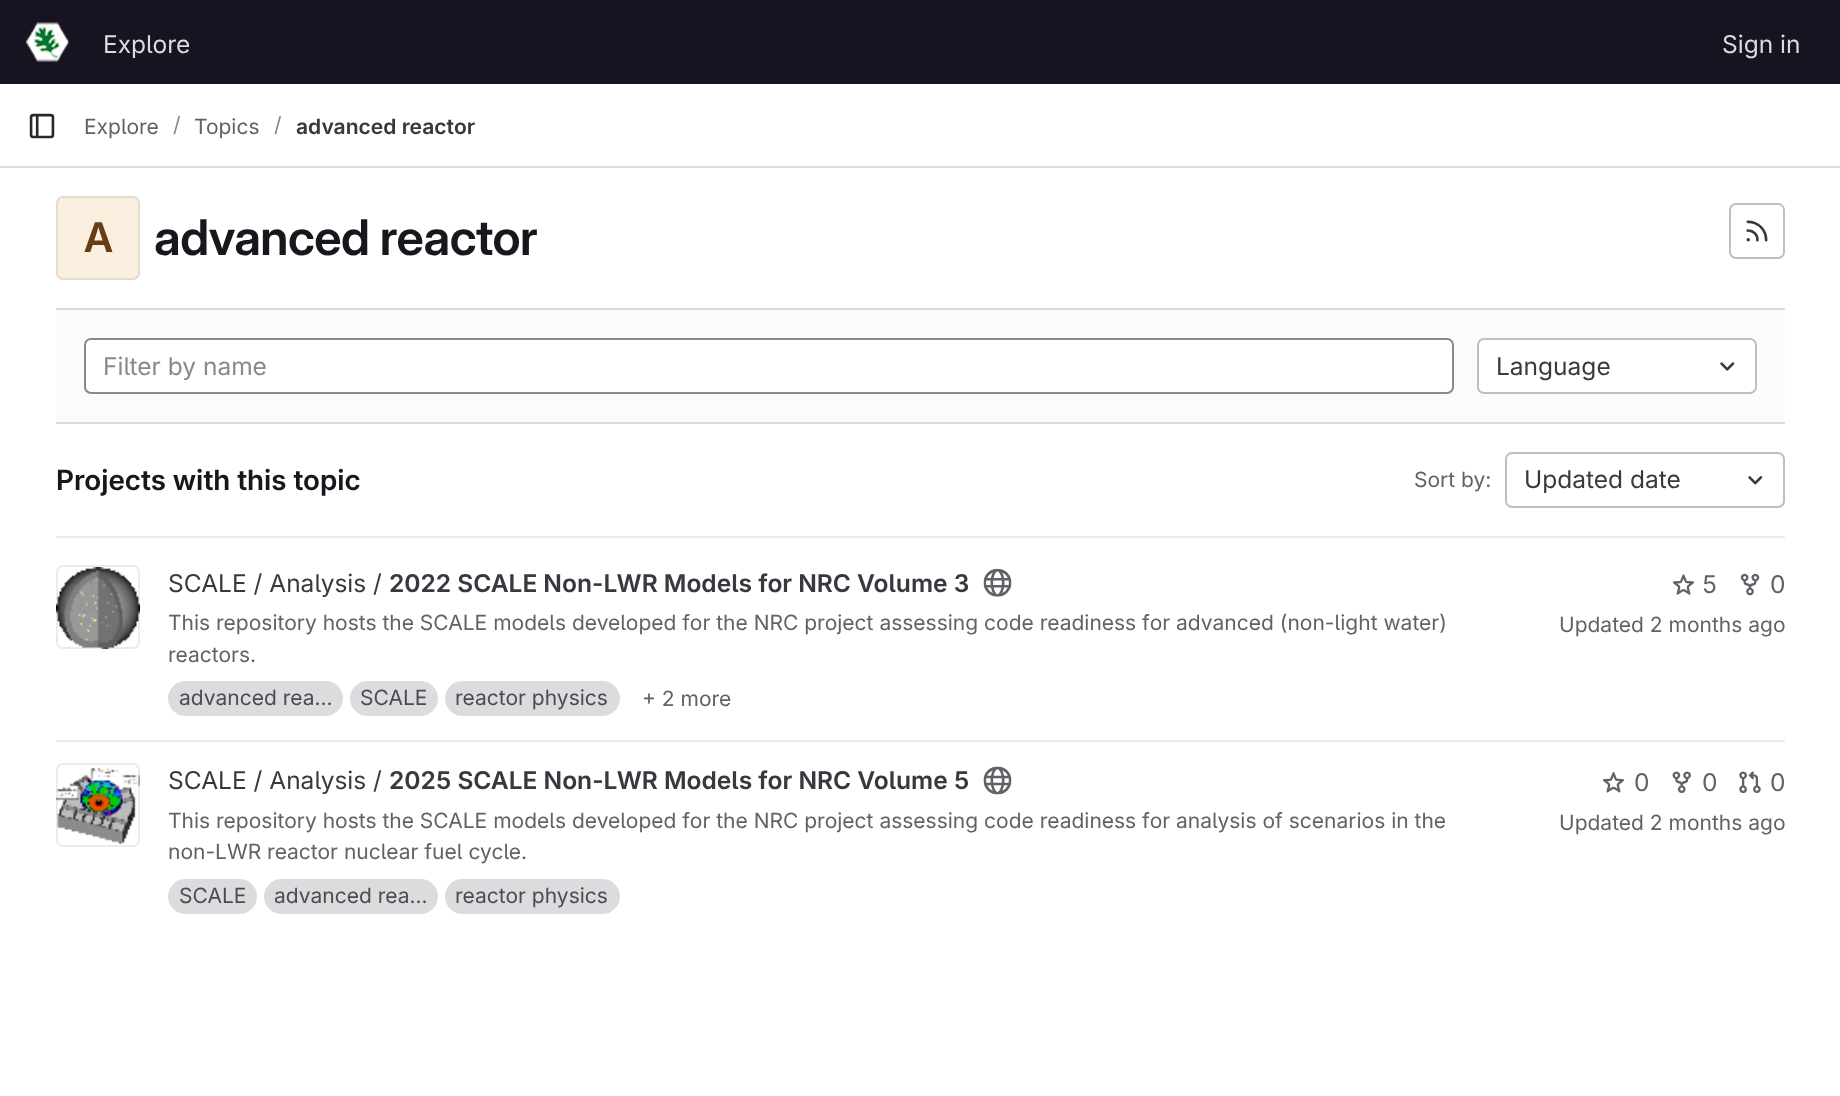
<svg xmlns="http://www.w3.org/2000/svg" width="1840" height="1096">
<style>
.a{font:24.5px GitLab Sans;fill:#dcdcde}
.b{font:21px GitLab Sans;fill:#626168}
.c{font:21px GitLab Sans;fill:#89888d}
.d{font:600 21px 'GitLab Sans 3';fill:#3a383f}
.e{font:600 41px 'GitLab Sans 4';letter-spacing:-0.5px;fill:#693c14}
.f{font:600 49px GitLab Sans;letter-spacing:-0.5px;fill:#18171d}
.g{font:24.5px GitLab Sans;fill:#89888d}
.h{font:24.5px GitLab Sans;fill:#3a383f}
.i{font:600 28px 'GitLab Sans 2';fill:#18171d}
.j{font:600 24.5px 'GitLab Sans 3';fill:#3a383f}
.k{font:21px GitLab Sans;fill:#4c4b51}
.l{font:24.5px GitLab Sans;fill:#626168}
</style>
<rect width="100%" height="100%" fill="#fff"/>
<path fill="#171321" d="M0 0h1840v84H0z"/>
<image href="1.png" x="26" y="22" width="43" height="40"/>
<path fill="#dcdcde" d="M0 166h1840v2H0z"/>
<image href="2.png" x="29" y="113" width="26" height="26"/>
<rect fill="#faefde" x="56" y="196" width="84" height="84" rx="7"/>
<rect fill="none" stroke="#05050614" stroke-width="2" x="57" y="197" width="82" height="82" rx="6"/>
<rect fill="none" stroke="#bfbfc3" stroke-width="2" x="1730" y="204" width="54" height="54" rx="6"/>
<image href="3.png" x="1746" y="220" width="22" height="22"/>
<path fill="#fbfafd" d="M56 310h1729v112H56z"/>
<path fill="#dcdcde" d="M56 308h1729v2H56z"/>
<path fill="#dcdcde" d="M56 422h1729v2H56z"/>
<rect fill="#fff" stroke="#89888d" stroke-width="2" x="85" y="339" width="1368" height="54" rx="6"/>
<rect fill="#fff" stroke="#bfbfc3" stroke-width="2" x="1478" y="339" width="278" height="54" rx="6"/>
<image href="4.png" x="1720" y="362" width="15" height="9"/>
<path fill="#ececef" d="M56 536h1729v2H56z"/>
<rect fill="none" stroke="#bfbfc3" stroke-width="2" x="1506" y="453" width="278" height="54" rx="6"/>
<image href="5.png" x="1748" y="476" width="15" height="9"/>
<path fill="#ececef" d="M56 740h1729v2H56z"/>
<image href="6.png" x="56" y="567" width="84" height="83"/>
<rect fill="none" stroke="#05050614" stroke-width="2" x="57" y="566" width="82" height="82" rx="6"/>
<image href="7.png" x="983" y="568" width="29" height="29"/>
<rect fill="#dcdcde" x="168" y="681" width="175" height="35" rx="17.5"/>
<rect fill="#dcdcde" x="350" y="681" width="88" height="35" rx="17.5"/>
<rect fill="#dcdcde" x="445" y="681" width="175" height="35" rx="17.5"/>
<image href="8.png" x="1672" y="574" width="23" height="21"/>
<image href="9.png" x="1740" y="573" width="20" height="23"/>
<image href="10.png" x="56" y="767" width="84" height="77"/>
<rect fill="none" stroke="#05050614" stroke-width="2" x="57" y="764" width="82" height="82" rx="6"/>
<image href="11.png" x="983" y="766" width="29" height="29"/>
<rect fill="#dcdcde" x="168" y="879" width="89" height="35" rx="17.5"/>
<rect fill="#dcdcde" x="264" y="879" width="174" height="35" rx="17.5"/>
<rect fill="#dcdcde" x="445" y="879" width="175" height="35" rx="17.5"/>
<image href="12.png" x="1602" y="772" width="23" height="21"/>
<image href="13.png" x="1672" y="771" width="19" height="22"/>
<image href="14.png" x="1739" y="771" width="22" height="22"/>
<text class="a" x="103" y="53">Explore</text>
<text class="a" x="1722" y="53">Sign in</text>
<text class="b" x="84" y="134">Explore</text>
<text class="c" x="173" y="132">/</text>
<text class="b" x="194" y="134">Topics</text>
<text class="c" x="274" y="132">/</text>
<text class="d" x="296" y="134">advanced reactor</text>
<text class="e" x="84" y="252">A</text>
<text class="f" x="154" y="255">advanced reactor</text>
<text class="g" x="103" y="375">Filter by name</text>
<text class="h" x="1496" y="375">Language</text>
<text class="i" x="56" y="490">Projects with this topic</text>
<text class="b" x="1414" y="487">Sort by:</text>
<text class="h" x="1524" y="488">Updated date</text>
<text class="h" x="168" y="592">SCALE / Analysis /</text>
<text class="j" x="389" y="592">2022 SCALE Non-LWR Models for NRC Volume 3</text>
<text class="b" x="168" y="630">This repository hosts the SCALE models developed for the NRC project assessing code readiness for advanced (non-light water)</text>
<text class="b" x="168" y="662">reactors.</text>
<text class="k" x="179" y="705">advanced rea...</text>
<text class="k" x="360" y="705">SCALE</text>
<text class="k" x="455" y="705">reactor physics</text>
<text class="b" x="642" y="706">+ 2 more</text>
<text class="l" x="1702" y="593">5</text>
<text class="l" x="1770" y="593">0</text>
<text class="b" x="1559" y="632">Updated 2 months ago</text>
<text class="h" x="168" y="789">SCALE / Analysis /</text>
<text class="j" x="389" y="789">2025 SCALE Non-LWR Models for NRC Volume 5</text>
<text class="b" x="168" y="828">This repository hosts the SCALE models developed for the NRC project assessing code readiness for analysis of scenarios in the</text>
<text class="b" x="168" y="859">non-LWR reactor nuclear fuel cycle.</text>
<text class="k" x="179" y="903">SCALE</text>
<text class="k" x="274" y="903">advanced rea...</text>
<text class="k" x="455" y="903">reactor physics</text>
<text class="l" x="1634" y="791">0</text>
<text class="l" x="1702" y="791">0</text>
<text class="l" x="1770" y="791">0</text>
<text class="b" x="1559" y="830">Updated 2 months ago</text>
</svg>
